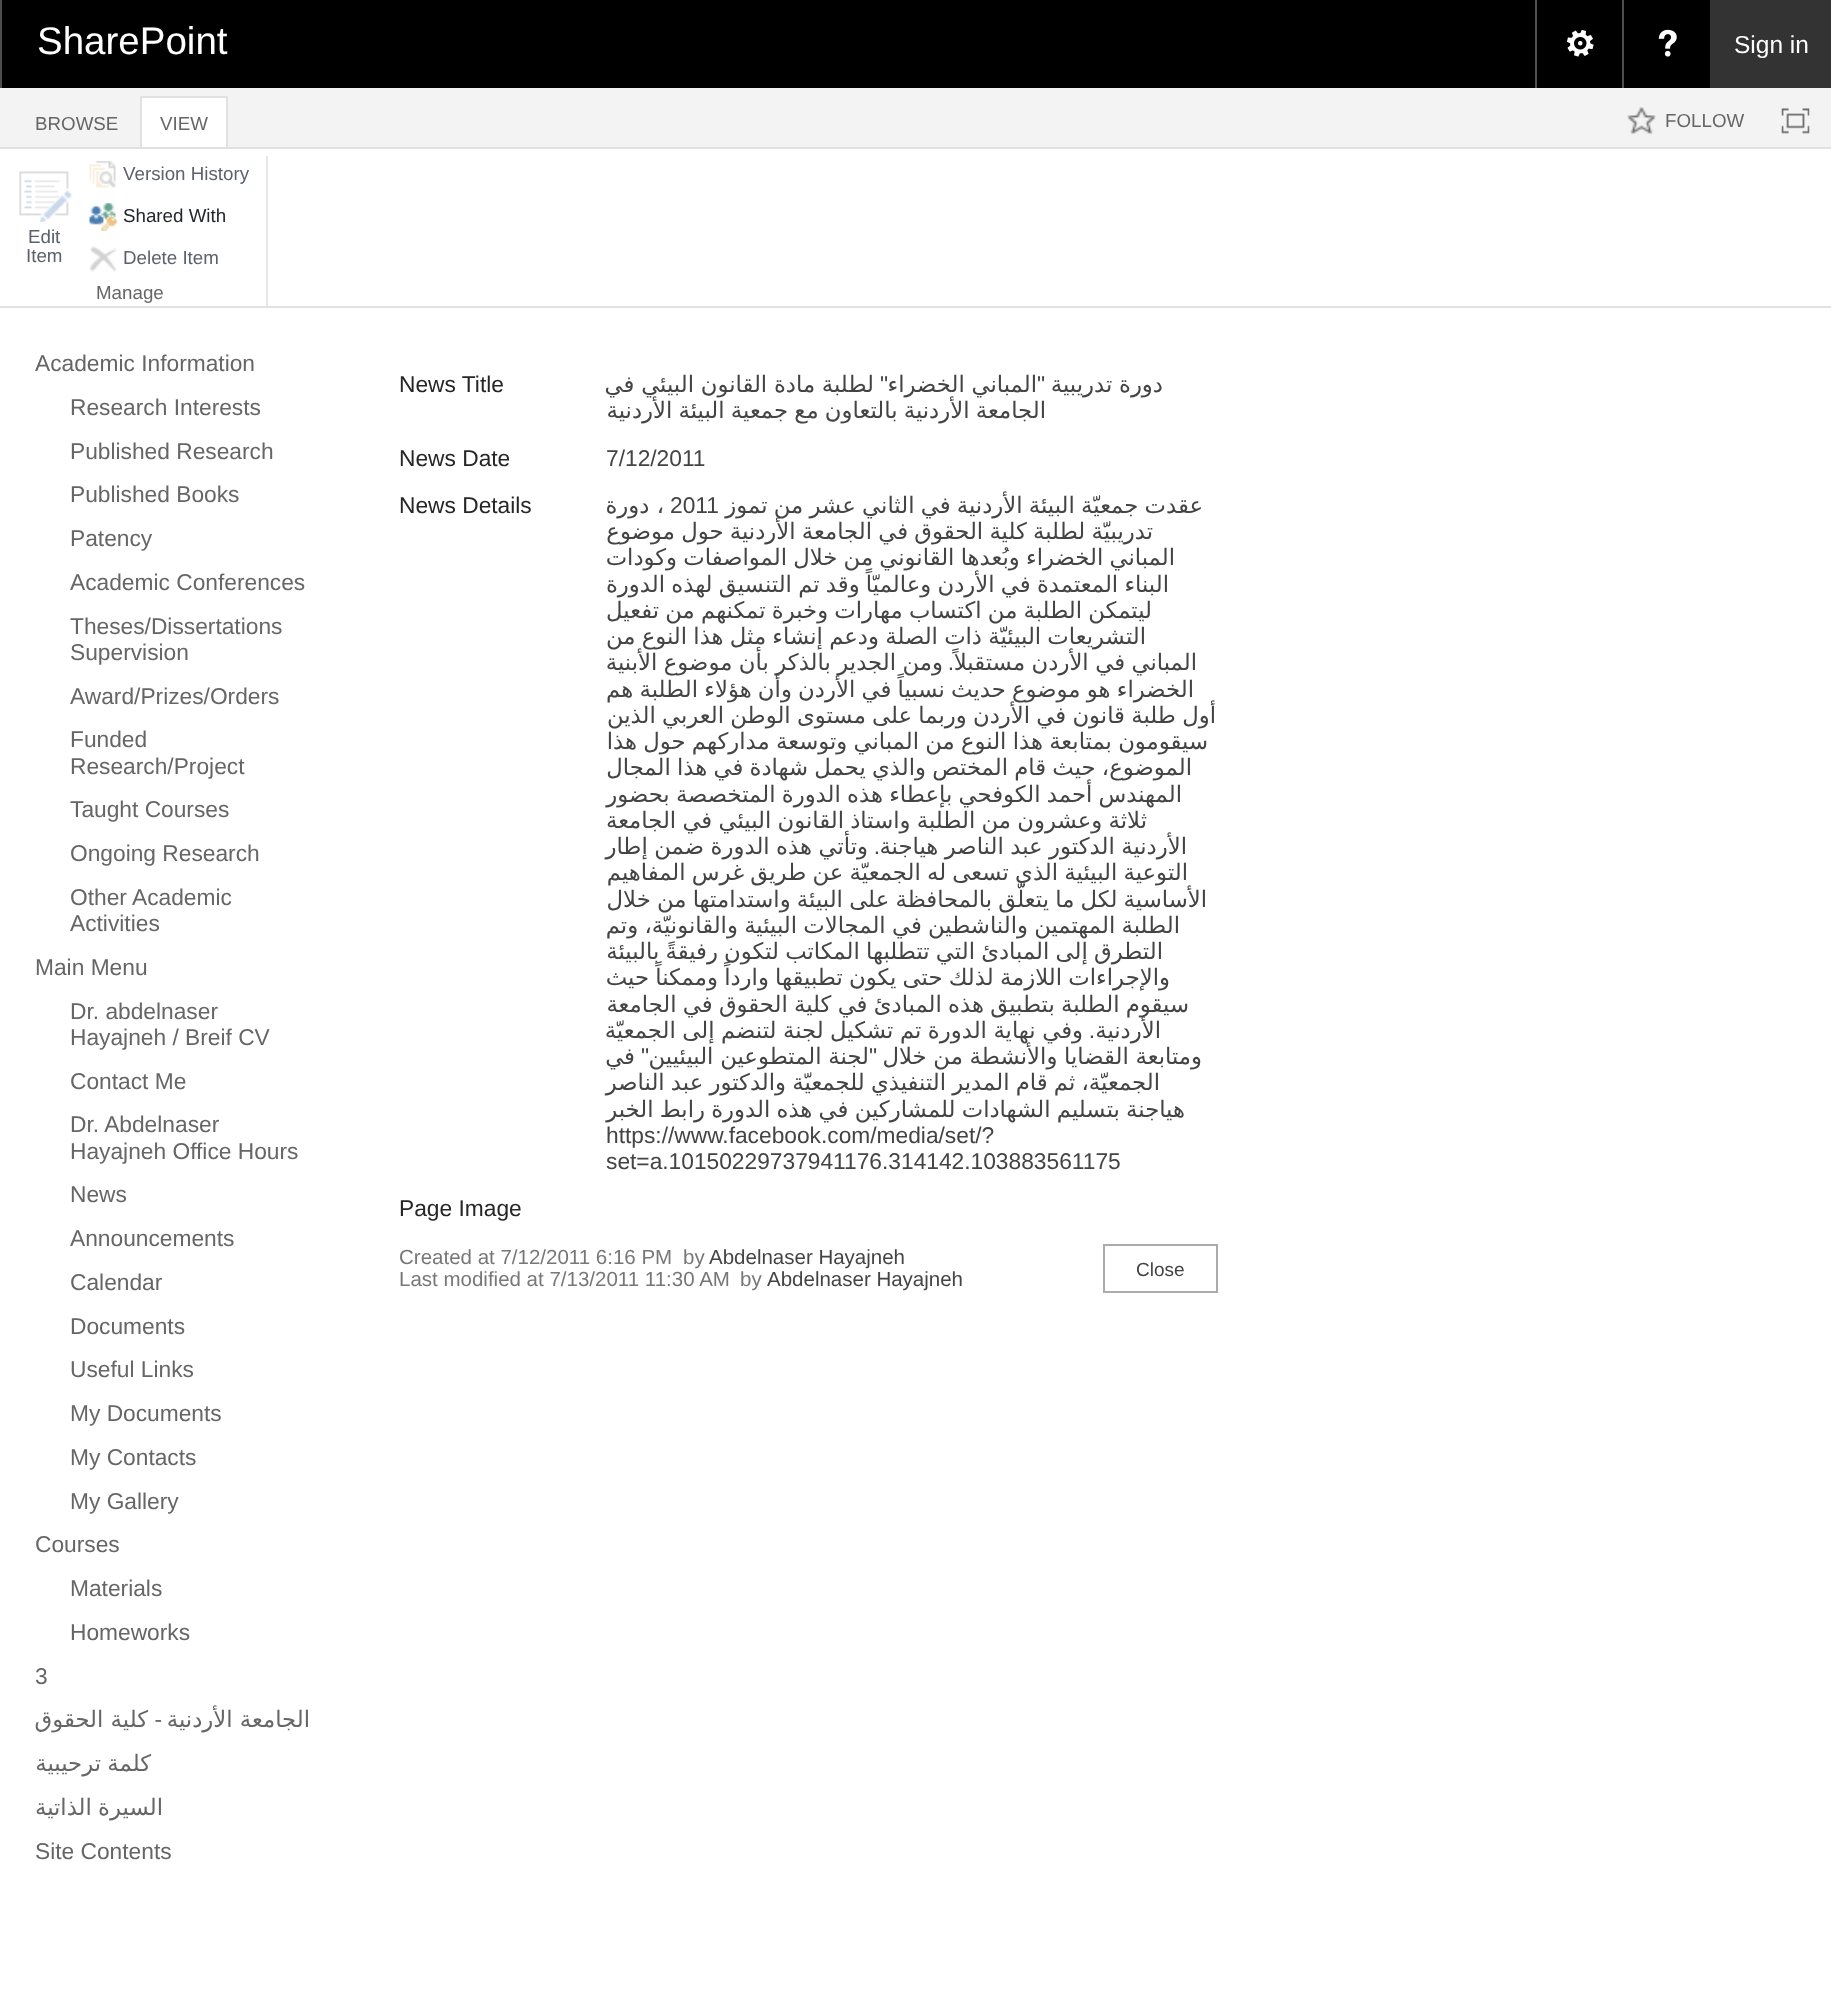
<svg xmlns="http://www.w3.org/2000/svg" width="1831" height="2008">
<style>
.a{font:24.5px Liberation Sans;fill:#fff}
.b{font:38.5px Liberation Sans;fill:#fff}
.c{font:18.75px Liberation Sans;fill:#666}
.d{font:18.75px Liberation Sans;fill:#5b626c}
.e{font:18.75px Liberation Sans;fill:#23272c}
.f{font:22.75px Liberation Sans;direction:rtl;fill:#444}
.g{font:22.75px DejaVu Sans;direction:rtl;fill:#444}
.h{font:22.75px Liberation Sans;fill:#262626}
.i{font:22.75px Liberation Sans;fill:#444}
.j{font:19px Liberation Sans;fill:#444}
.k{font:20.5px Liberation Sans;fill:#444}
.l{font:20.5px Liberation Sans;fill:#777}
.m{font:22.75px Liberation Sans;fill:#666}
.n{font:22.75px DejaVu Sans;direction:rtl;fill:#666}
.o{font:22.75px Liberation Sans;direction:rtl;fill:#666}
</style>
<rect width="100%" height="100%" fill="#fff"/>
<path fill="#000" d="M2 0h1708v88H2z"/>
<path fill="#333" d="M1710 0h121v88H1710z"/>
<path fill="#4d4d4d" d="M1622 0h2v88H1622z"/>
<image href="1.png" x="1658" y="29" width="19" height="28"/>
<path fill="#4d4d4d" d="M1535 0h2v88H1535z"/>
<image href="2.png" x="1566" y="29" width="28" height="28"/>
<path fill="#4d4d4d" d="M0 0h2v88H0z"/>
<path fill="#f3f3f3" d="M0 88h1831v59H0z"/>
<path fill="#e1e1e1" d="M0 147h1831v2H0z"/>
<image href="3.png" x="1781" y="108" width="29" height="26"/>
<image href="4.png" x="1627" y="107" width="29" height="28"/>
<path fill="#fff" d="M142 98h84v49H142z"/>
<path fill="#e1e1e1" d="M140 96h88v2H140z"/>
<path fill="#e1e1e1" d="M226 96h2v51H226z"/>
<path fill="#e1e1e1" d="M140 96h2v51H140z"/>
<path fill="#e1e1e1" d="M0 306h1831v2H0z"/>
<path fill="#e7e7e8" d="M266 156h2v150H266z"/>
<image href="5.png" x="89" y="161" width="27" height="27"/>
<image href="6.png" x="89" y="203" width="29" height="28"/>
<image href="7.png" x="89" y="246" width="28" height="26"/>
<image href="8.png" x="19" y="171" width="53" height="52"/>
<path fill="none" stroke="#ababab" stroke-width="2" d="M1104 1245h113v47H1104z"/>
<text class="a" x="1734" y="53">Sign in</text>
<text class="b" x="37" y="54">SharePoint</text>
<text class="c" x="1665" y="127">FOLLOW</text>
<text class="c" x="160" y="130">VIEW</text>
<text class="c" x="35" y="130">BROWSE</text>
<text class="d" x="123" y="180">Version History</text>
<text class="e" x="123" y="222">Shared With</text>
<text class="d" x="123" y="264">Delete Item</text>
<text class="d" x="28" y="243">Edit</text>
<text class="d" x="26" y="262">Item</text>
<text class="c" x="96" y="299">Manage</text>
<text class="f" x="1045" y="392">"</text>
<text class="g" x="1037" y="392" word-spacing="-0.5">المباني الخضراء</text>
<text class="f" x="888" y="392">"</text>
<text class="g" x="874" y="392" word-spacing="-0.5">لطلبة مادة القانون البيئي في</text>
<text class="g" x="1163" y="392" word-spacing="-0.5">دورة تدريبية</text>
<text class="g" x="1046" y="418" word-spacing="-1">الجامعة الأردنية بالتعاون مع جمعية البيئة الأردنية</text>
<text class="h" x="399" y="392">News Title</text>
<text class="i" x="606" y="466">7/12/2011</text>
<text class="h" x="399" y="466">News Date</text>
<text class="g" x="1203" y="513" word-spacing="-1">عقدت جمعيّة البيئة الأردنية في الثاني عشر من تموز</text>
<text class="i" x="670" y="513">2011</text>
<text class="g" x="664" y="513">، دورة</text>
<text class="g" x="1153" y="539" word-spacing="-1">تدريبيّة لطلبة كلية الحقوق في الجامعة الأردنية حول موضوع</text>
<text class="g" x="1175" y="565" word-spacing="-1">المباني الخضراء وبُعدها القانوني من خلال المواصفات وكودات</text>
<text class="g" x="1169" y="592" word-spacing="-1">البناء المعتمدة في الأردن وعالميّاً وقد تم التنسيق لهذه الدورة</text>
<text class="g" x="1152" y="618" word-spacing="-1">ليتمكن الطلبة من اكتساب مهارات وخبرة تمكنهم من تفعيل</text>
<text class="g" x="1146" y="644" word-spacing="-1">التشريعات البيئيّة ذات الصلة ودعم إنشاء مثل هذا النوع من</text>
<text class="f" x="954" y="670">.</text>
<text class="g" x="1197" y="670" word-spacing="-0.75">المباني في الأردن مستقبلاً</text>
<text class="g" x="943" y="670" word-spacing="-0.75">ومن الجدير بالذكر بأن موضوع الأبنية</text>
<text class="g" x="1194" y="697" word-spacing="-1">الخضراء هو موضوع حديث نسبياً في الأردن وأن هؤلاء الطلبة هم</text>
<text class="g" x="1216" y="723" word-spacing="-1">أول طلبة قانون في الأردن وربما على مستوى الوطن العربي الذين</text>
<text class="g" x="1208" y="749" word-spacing="-1">سيقومون بمتابعة هذا النوع من المباني وتوسعة مداركهم حول هذا</text>
<text class="g" x="1192" y="775" word-spacing="-1">الموضوع، حيث قام المختص والذي يحمل شهادة في هذا المجال</text>
<text class="g" x="1182" y="802" word-spacing="-1">المهندس أحمد الكوفحي بإعطاء هذه الدورة المتخصصة بحضور</text>
<text class="g" x="1147" y="828" word-spacing="-1">ثلاثة وعشرون من الطلبة واستاذ القانون البيئي في الجامعة</text>
<text class="g" x="1187" y="854" word-spacing="-0.75">الأردنية الدكتور عبد الناصر هياجنة</text>
<text class="f" x="880" y="854">.</text>
<text class="g" x="868" y="854" word-spacing="-0.75">وتأتي هذه الدورة ضمن إطار</text>
<text class="g" x="1188" y="880" word-spacing="-1">التوعية البيئية الذي تسعى له الجمعيّة عن طريق غرس المفاهيم</text>
<text class="g" x="1207" y="907" word-spacing="-1">الأساسية لكل ما يتعلّق بالمحافظة على البيئة واستدامتها من خلال</text>
<text class="g" x="1180" y="933" word-spacing="-1">الطلبة المهتمين والناشطين في المجالات البيئية والقانونيّة، وتم</text>
<text class="g" x="1163" y="959" word-spacing="-1">التطرق إلى المبادئ التي تتطلبها المكاتب لتكون رفيقةً بالبيئة</text>
<text class="g" x="1170" y="985" word-spacing="-1">والإجراءات اللازمة لذلك حتى يكون تطبيقها وارداً وممكناً حيث</text>
<text class="g" x="1189" y="1012" word-spacing="-1">سيقوم الطلبة بتطبيق هذه المبادئ في كلية الحقوق في الجامعة</text>
<text class="g" x="1161" y="1038">الأردنية</text>
<text class="f" x="1095" y="1038">.</text>
<text class="g" x="1083" y="1038" word-spacing="-0.75">وفي نهاية الدورة تم تشكيل لجنة لتنضم إلى الجمعيّة</text>
<text class="g" x="1202" y="1064" word-spacing="-0.5">ومتابعة القضايا والأنشطة من خلال</text>
<text class="f" x="877" y="1064">"</text>
<text class="g" x="869" y="1064" word-spacing="-0.5">لجنة المتطوعين البيئيين</text>
<text class="f" x="649" y="1064">"</text>
<text class="g" x="635" y="1064">في</text>
<text class="g" x="1160" y="1090" word-spacing="-1">الجمعيّة، ثم قام المدير التنفيذي للجمعيّة والدكتور عبد الناصر</text>
<text class="g" x="1185" y="1117" word-spacing="-1">هياجنة بتسليم الشهادات للمشاركين في هذه الدورة رابط الخبر</text>
<text class="i" x="606" y="1143">https://www.facebook.com/media/set/?</text>
<text class="i" x="606" y="1169">set=a.10150229737941176.314142.103883561175</text>
<text class="h" x="399" y="513">News Details</text>
<text class="h" x="399" y="1216">Page Image</text>
<text class="j" x="1136" y="1276">Close</text>
<text class="k" x="709" y="1264">Abdelnaser Hayajneh</text>
<text class="l" x="683" y="1264">by</text>
<text class="l" x="399" y="1264">Created at 7/12/2011 6:16 PM</text>
<text class="k" x="767" y="1286">Abdelnaser Hayajneh</text>
<text class="l" x="740" y="1286">by</text>
<text class="l" x="399" y="1286">Last modified at 7/13/2011 11:30 AM</text>
<text class="m" x="35" y="371">Academic Information</text>
<text class="m" x="70" y="415">Research Interests</text>
<text class="m" x="70" y="459">Published Research</text>
<text class="m" x="70" y="502">Published Books</text>
<text class="m" x="70" y="546">Patency</text>
<text class="m" x="70" y="590">Academic Conferences</text>
<text class="m" x="70" y="634">Theses/Dissertations</text>
<text class="m" x="70" y="660">Supervision</text>
<text class="m" x="70" y="704">Award/Prizes/Orders</text>
<text class="m" x="70" y="747">Funded</text>
<text class="m" x="70" y="774">Research/Project</text>
<text class="m" x="70" y="817">Taught Courses</text>
<text class="m" x="70" y="861">Ongoing Research</text>
<text class="m" x="70" y="905">Other Academic</text>
<text class="m" x="70" y="931">Activities</text>
<text class="m" x="35" y="975">Main Menu</text>
<text class="m" x="70" y="1019">Dr. abdelnaser</text>
<text class="m" x="70" y="1045">Hayajneh / Breif CV</text>
<text class="m" x="70" y="1089">Contact Me</text>
<text class="m" x="70" y="1132">Dr. Abdelnaser</text>
<text class="m" x="70" y="1159">Hayajneh Office Hours</text>
<text class="m" x="70" y="1202">News</text>
<text class="m" x="70" y="1246">Announcements</text>
<text class="m" x="70" y="1290">Calendar</text>
<text class="m" x="70" y="1334">Documents</text>
<text class="m" x="70" y="1377">Useful Links</text>
<text class="m" x="70" y="1421">My Documents</text>
<text class="m" x="70" y="1465">My Contacts</text>
<text class="m" x="70" y="1509">My Gallery</text>
<text class="m" x="35" y="1552">Courses</text>
<text class="m" x="70" y="1596">Materials</text>
<text class="m" x="70" y="1640">Homeworks</text>
<text class="m" x="35" y="1684">3</text>
<text class="n" x="310" y="1727">الجامعة الأردنية</text>
<text class="o" x="162" y="1727">-</text>
<text class="n" x="148" y="1727">كلية الحقوق</text>
<text class="n" x="151" y="1771" word-spacing="-1">كلمة ترحيبية</text>
<text class="n" x="163" y="1815" word-spacing="-1">السيرة الذاتية</text>
<text class="m" x="35" y="1859">Site Contents</text>
</svg>
